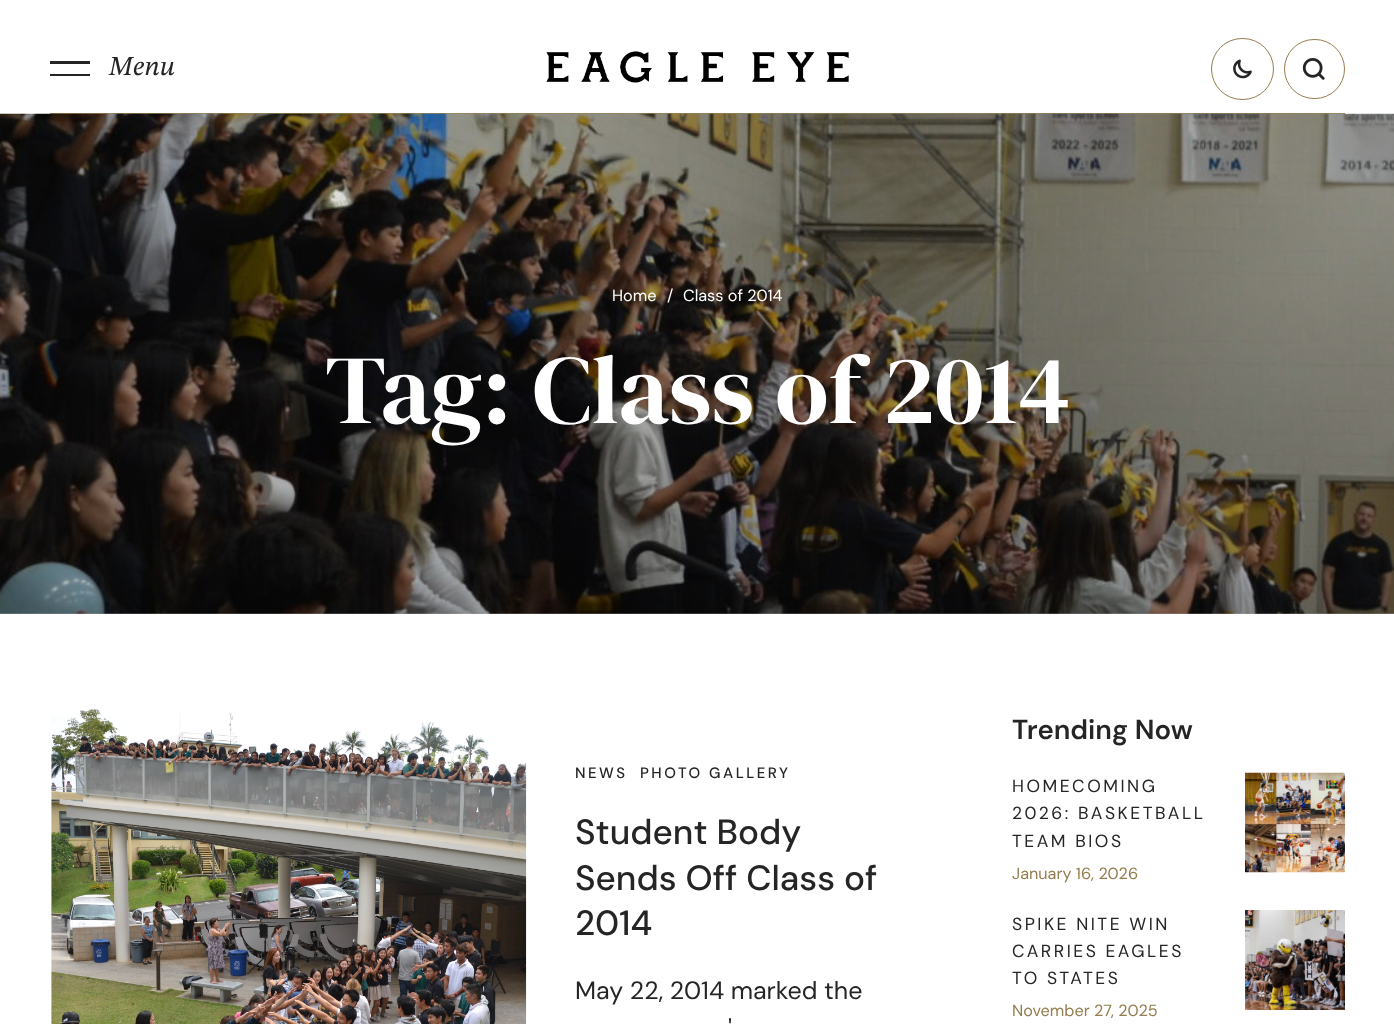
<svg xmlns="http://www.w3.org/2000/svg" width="1394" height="1024">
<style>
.a{font:italic 27.5px STIX Two Text;fill:#252525}
.b{font:16.25px DM Sans;fill:#fff}
.c{font:97.5px DM Serif Display;fill:#fff}
.d{font:500 15px DM Sans;letter-spacing:2.5px;fill:#252525}
.e{font:500 35px DM Sans;fill:#252525}
.f{font:25px DM Sans;fill:#252525}
.g{font:600 27.5px DM Sans;fill:#252525}
.h{font:17.5px DM Sans;letter-spacing:2.5px;fill:#252525}
.i{font:16.25px DM Sans;fill:#947d4f}
</style>
<defs>
<linearGradient id="g1" gradientUnits="userSpaceOnUse" x1="698" y1="114" x2="698" y2="614"><stop offset="0" stop-color="#000" stop-opacity="0.1"/><stop offset="1" stop-color="#000" stop-opacity="0.3"/></linearGradient>
</defs>
<rect width="100%" height="100%" fill="#fff"/>
<path fill="#252525" d="M90 64h-40v-3h40zm0 12h-40v-2h40z"/>
<image href="1.png" x="546" y="51" width="303" height="32"/>
<rect fill="none" stroke="#947d4f" x="1211.5" y="38.5" width="62" height="61" rx="30.5"/>
<image href="2.png" x="1233" y="59" width="19" height="20"/>
<rect fill="none" stroke="#947d4f" x="1284.5" y="39.5" width="60" height="59" rx="29.5"/>
<image href="3.png" x="1302" y="58" width="23" height="22"/>
<path fill="#947d4f" d="M50 113h1295v1H50z"/>
<image href="4.png" x="0" y="113" width="1394" height="501"/>
<path fill="url(#g1)" d="M0 114h1394v500H0z"/>
<image href="5.png" x="51" y="708" width="476" height="316"/>
<image href="6.png" x="1245" y="772" width="100" height="101"/>
<image href="7.png" x="1245" y="910" width="100" height="100"/>
<text class="a" x="109" y="75">Menu</text>
<text class="b" x="612" y="301">Home</text>
<text class="b" x="667" y="301">/</text>
<text class="b" x="683" y="301">Class of 2014</text>
<text class="c" x="325" y="423">Tag: Class of 2014</text>
<text class="d" x="575" y="778">NEWS</text>
<text class="d" x="640" y="778">PHOTO GALLERY</text>
<text class="e" x="575" y="844">Student Body</text>
<text class="e" x="575" y="890">Sends Off Class of</text>
<text class="e" x="575" y="935">2014</text>
<text class="f" x="575" y="999">May 22, 2014 marked the</text>
<text class="f" x="728" y="1037">'</text>
<text class="g" x="1012" y="739">Trending Now</text>
<text class="h" x="1012" y="792">HOMECOMING</text>
<text class="h" x="1012" y="819">2026: BASKETBALL</text>
<text class="h" x="1012" y="847">TEAM BIOS</text>
<text class="i" x="1012" y="879">January 16, 2026</text>
<text class="h" x="1012" y="930">SPIKE NITE WIN</text>
<text class="h" x="1012" y="957">CARRIES EAGLES</text>
<text class="h" x="1012" y="984">TO STATES</text>
<text class="i" x="1012" y="1016">November 27, 2025</text>
</svg>
